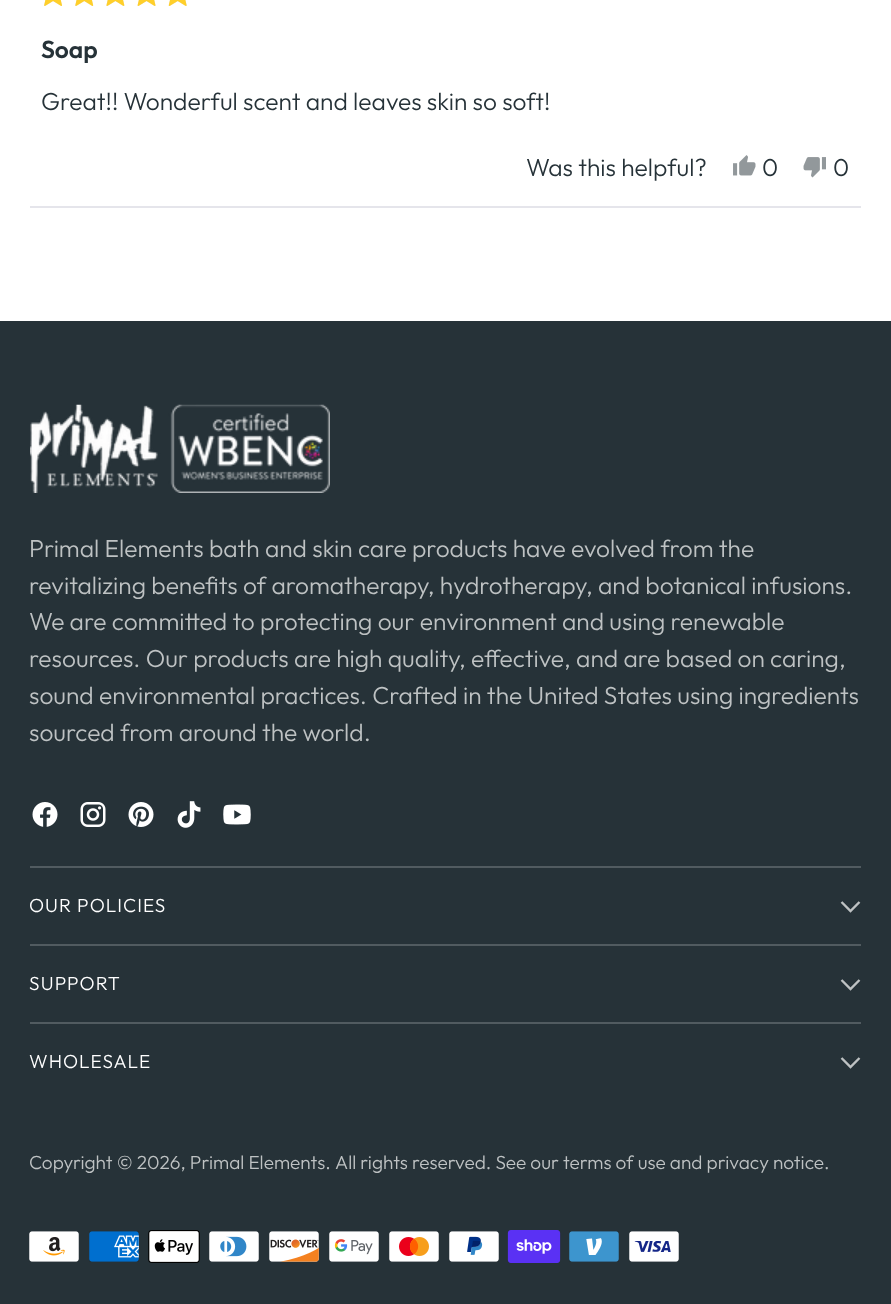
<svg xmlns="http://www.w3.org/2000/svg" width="891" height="1304">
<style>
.a{font:600 24.55px Outfit;fill:#263238}
.b{font:300 24.55px Outfit;fill:#263238}
.c{font:300 24.55px Outfit;fill:#bec2c3}
.d{font:300 19.05px Outfit;letter-spacing:1px;fill:#fff}
.e{font:300 19.05px Outfit;fill:#bec2c3}
</style>
<rect width="100%" height="100%" fill="#fff"/>
<path fill="#e5e5eb" d="M30 206h831v2H30z"/>
<image href="1.png" x="44" y="0" width="143" height="6"/>
<image href="2.png" x="44" y="0" width="143" height="6"/>
<image href="3.png" x="733" y="155" width="23" height="21"/>
<image href="4.png" x="803" y="157" width="23" height="21"/>
<path fill="#263238" d="M0 321h891v983H0z"/>
<path fill="#515b60" d="M30 866h831v2H30z"/>
<image href="5.png" x="30" y="404" width="300" height="89"/>
<image href="6.png" x="32" y="802" width="26" height="25"/>
<image href="7.png" x="80" y="802" width="26" height="25"/>
<image href="8.png" x="128" y="802" width="26" height="25"/>
<image href="9.png" x="177" y="801" width="24" height="27"/>
<image href="10.png" x="223" y="804" width="28" height="21"/>
<path fill="#515b60" d="M30 944h831v2H30z"/>
<path fill="none" stroke="#bec2c3" stroke-width="2.4" d="M841.5 902l9 9l9-9"/>
<path fill="#515b60" d="M30 1022h831v2H30z"/>
<path fill="none" stroke="#bec2c3" stroke-width="2.4" d="M841.5 980l9 9l9-9"/>
<path fill="none" stroke="#bec2c3" stroke-width="2.4" d="M841.5 1058l9 9l9-9"/>
<image href="11.png" x="29" y="1231" width="50" height="31"/>
<image href="12.png" x="89" y="1231" width="50" height="31"/>
<image href="13.png" x="148" y="1230" width="52" height="33"/>
<image href="14.png" x="209" y="1231" width="50" height="31"/>
<image href="15.png" x="269" y="1231" width="50" height="31"/>
<image href="16.png" x="329" y="1231" width="50" height="31"/>
<image href="17.png" x="389" y="1231" width="50" height="31"/>
<image href="18.png" x="449" y="1231" width="50" height="31"/>
<image href="19.png" x="507" y="1230" width="54" height="33"/>
<image href="20.png" x="569" y="1231" width="50" height="31"/>
<image href="21.png" x="629" y="1231" width="50" height="31"/>
<text class="a" x="41" y="58">Soap</text>
<text class="b" x="41" y="110">Great!! Wonderful scent and leaves skin so soft!</text>
<text class="b" x="526" y="176">Was this helpful?</text>
<text class="b" x="762" y="176">0</text>
<text class="b" x="833" y="176">0</text>
<text class="c" x="29" y="557">Primal Elements bath and skin care products have evolved from the</text>
<text class="c" x="29" y="594">revitalizing benefits of aromatherapy, hydrotherapy, and botanical infusions.</text>
<text class="c" x="29" y="630">We are committed to protecting our environment and using renewable</text>
<text class="c" x="29" y="667">resources. Our products are high quality, effective, and are based on caring,</text>
<text class="c" x="29" y="704">sound environmental practices. Crafted in the United States using ingredients</text>
<text class="c" x="29" y="741">sourced from around the world.</text>
<text class="d" x="29" y="912">OUR POLICIES</text>
<text class="d" x="29" y="990">SUPPORT</text>
<text class="d" x="29" y="1068">WHOLESALE</text>
<text class="e" x="29" y="1169">Copyright © 2026, Primal Elements.</text>
<text class="e" x="335" y="1169">All rights reserved. See our terms of use and privacy notice.</text>
</svg>
